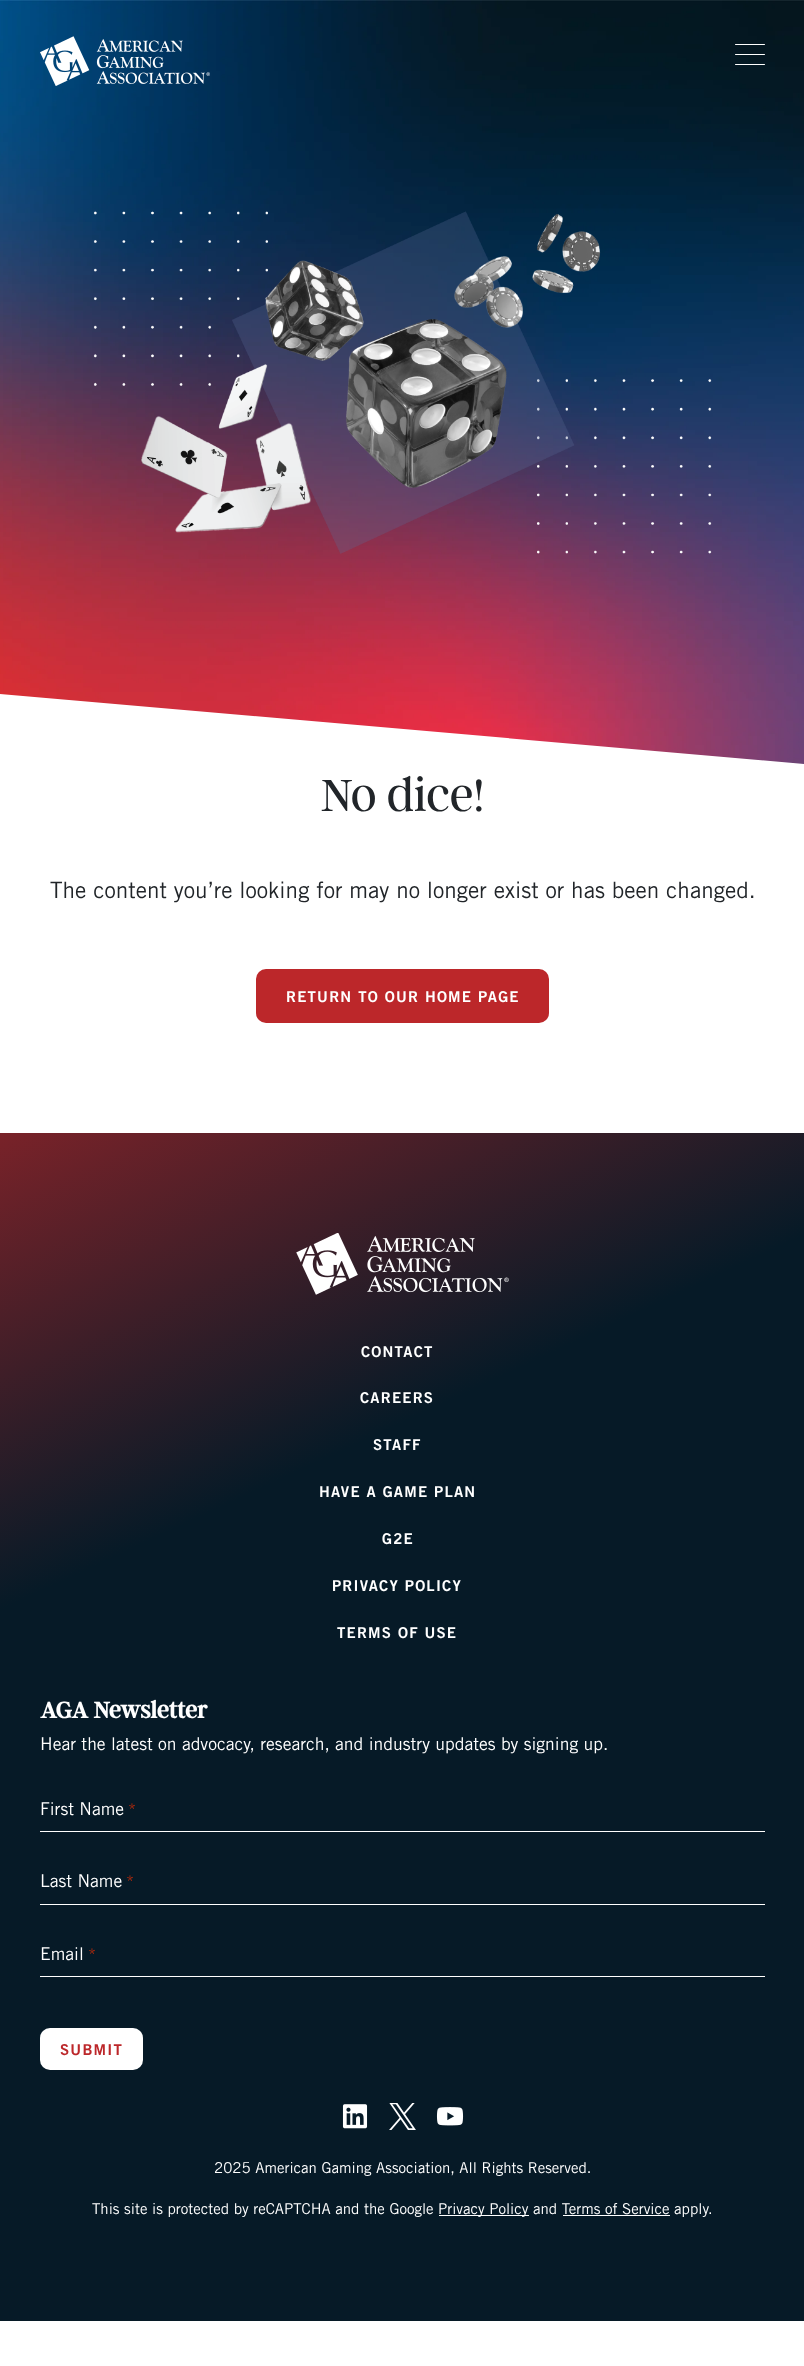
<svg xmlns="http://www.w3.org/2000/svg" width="804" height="2366">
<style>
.a{font:300 50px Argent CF;fill:#212529}
.b{font:22.5px Trade Gothic;fill:#212529}
.c{font:bold 15px Trade Gothic;letter-spacing:1.2px;fill:#fff}
.d{font:bold 25px Argent CF;fill:#fff}
.e{font:17.5px Trade Gothic;fill:#fff}
.f{font:16px Trade Gothic;fill:#c02b0a}
.g{font:bold 15px Trade Gothic;letter-spacing:1.2px;fill:#bc272a}
.h{font:15px Trade Gothic;fill:#fff}
</style>
<defs>
<clipPath id="clip1"><path d="M0 0h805v765H0z"/></clipPath>
<linearGradient id="g1" gradientUnits="userSpaceOnUse" x1="702" y1="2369" x2="-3.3" y2="857"><stop offset="0.18" stop-color="#061a27"/><stop offset="0.59" stop-color="#061a27"/><stop offset="1" stop-color="#bc272a"/></linearGradient>
</defs>
<rect width="100%" height="100%" fill="#fff"/>
<image href="2.png" x="0" y="0" width="804" height="764"/>
<image href="1.png" x="40" y="36" width="170" height="50"/>
<rect fill="#fff" x="735" y="44" width="30" height="1" rx="0.5"/>
<rect fill="#fff" x="735" y="54" width="30" height="1" rx="0.5"/>
<rect fill="#fff" x="735" y="64" width="30" height="1" rx="0.5"/>
<g clip-path="url(#clip1)">
<path fill="#fff" d="M0 694v72h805v-2z"/>
</g>
<image href="3.png" x="93" y="211" width="619" height="343"/>
<rect fill="#bc272a" x="256" y="969" width="293" height="54" rx="10"/>
<path fill="url(#g1)" d="M0 1133h804v1188H0z"/>
<image href="4.png" x="296" y="1233" width="213" height="62"/>
<path fill="#fff" d="M40 1831h725v1H40z"/>
<path fill="#fff" d="M40 1904h725v1H40z"/>
<path fill="#fff" d="M40 1976h725v1H40z"/>
<rect fill="#fff" x="40" y="2028" width="103" height="42" rx="10"/>
<image href="5.png" x="342" y="2104" width="26" height="25"/>
<image href="6.png" x="389" y="2103" width="27" height="27"/>
<image href="7.png" x="436" y="2107" width="28" height="19"/>
<path fill="#fff" d="M439 2215h90v1H439z"/>
<path fill="#fff" d="M563 2215h107v1H563z"/>
<text class="a" x="321" y="811">No dice!</text>
<text class="b" x="50" y="898">The content you’re looking for may no longer exist or has been changed.</text>
<text class="c" x="286" y="1002">RETURN TO OUR HOME PAGE</text>
<text class="c" x="361" y="1357">CONTACT</text>
<text class="c" x="360" y="1403">CAREERS</text>
<text class="c" x="373" y="1450">STAFF</text>
<text class="c" x="319" y="1497">HAVE A GAME PLAN</text>
<text class="c" x="382" y="1544">G2E</text>
<text class="c" x="332" y="1591">PRIVACY POLICY</text>
<text class="c" x="337" y="1638">TERMS OF USE</text>
<text class="d" x="40" y="1718">AGA Newsletter</text>
<text class="e" x="40" y="1750">Hear the latest on advocacy, research, and industry updates by signing up.</text>
<text class="e" x="40" y="1815">First Name</text>
<text class="f" x="128" y="1815">*</text>
<text class="e" x="40" y="1887">Last Name</text>
<text class="f" x="126" y="1887">*</text>
<text class="e" x="40" y="1960">Email</text>
<text class="f" x="88" y="1960">*</text>
<text class="g" x="60" y="2055">SUBMIT</text>
<text class="h" x="214" y="2173">2025 American Gaming Association, All Rights Reserved.</text>
<text class="h" x="92" y="2214">This site is protected by reCAPTCHA and the Google</text>
<text class="h" x="438" y="2214">Privacy Policy and Terms of Service apply.</text>
</svg>
